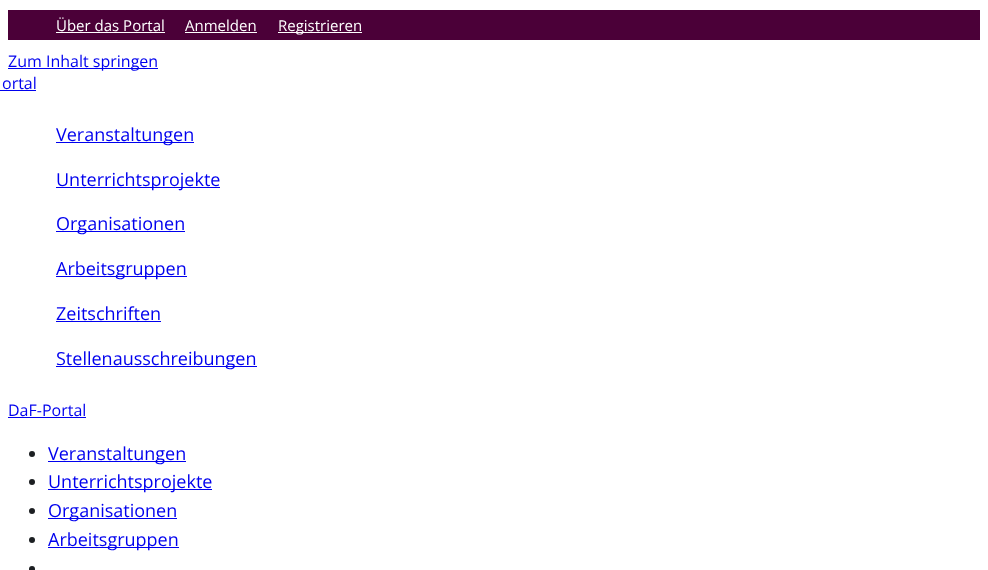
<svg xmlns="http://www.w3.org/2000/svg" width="988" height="570">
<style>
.a{font:15px Open Sans;fill:#fff}
.b{font:16px Open Sans;fill:#00e}
.c{font:18px Open Sans;fill:#00e}
</style>
<rect width="100%" height="100%" fill="#fff"/>
<path fill="#4b0038" d="M8 10h972v30H8z"/>
<path fill="#fff" d="M56 32h109v1H56z"/>
<path fill="#fff" d="M185 32h72v1H185z"/>
<path fill="#fff" d="M278 32h84v1H278z"/>
<path fill="#00e" d="M8 68h150v1H8z"/>
<path fill="#00e" d="M0 90h36v1H0z"/>
<path fill="#00e" d="M56 142h138v1H56z"/>
<path fill="#00e" d="M56 187h164v1H56z"/>
<path fill="#00e" d="M56 231h129v1H56z"/>
<path fill="#00e" d="M56 276h131v1H56z"/>
<path fill="#00e" d="M56 321h105v1H56z"/>
<path fill="#00e" d="M56 366h201v1H56z"/>
<path fill="#00e" d="M8 417h78v1H8z"/>
<circle fill="#1c1f22" cx="32" cy="454" r="3"/>
<path fill="#00e" d="M48 461h138v1H48z"/>
<circle fill="#1c1f22" cx="32" cy="482" r="3"/>
<path fill="#00e" d="M48 489h164v1H48z"/>
<circle fill="#1c1f22" cx="32" cy="511" r="3"/>
<path fill="#00e" d="M48 518h129v1H48z"/>
<circle fill="#1c1f22" cx="32" cy="540" r="3"/>
<path fill="#00e" d="M48 547h131v1H48z"/>
<circle fill="#1c1f22" cx="32" cy="569" r="3"/>
<text class="a" x="56" y="31">Über das Portal</text>
<text class="a" x="185" y="31">Anmelden</text>
<text class="a" x="278" y="31">Registrieren</text>
<text class="b" x="8" y="67">Zum Inhalt springen</text>
<text class="b" x="2" y="89">ortal</text>
<text class="c" x="56" y="141">Veranstaltungen</text>
<text class="c" x="56" y="186">Unterrichtsprojekte</text>
<text class="c" x="56" y="230">Organisationen</text>
<text class="c" x="56" y="275">Arbeitsgruppen</text>
<text class="c" x="56" y="320">Zeitschriften</text>
<text class="c" x="56" y="365">Stellenausschreibungen</text>
<text class="b" x="8" y="416">DaF-Portal</text>
<text class="c" x="48" y="460">Veranstaltungen</text>
<text class="c" x="48" y="488">Unterrichtsprojekte</text>
<text class="c" x="48" y="517">Organisationen</text>
<text class="c" x="48" y="546">Arbeitsgruppen</text>
</svg>
